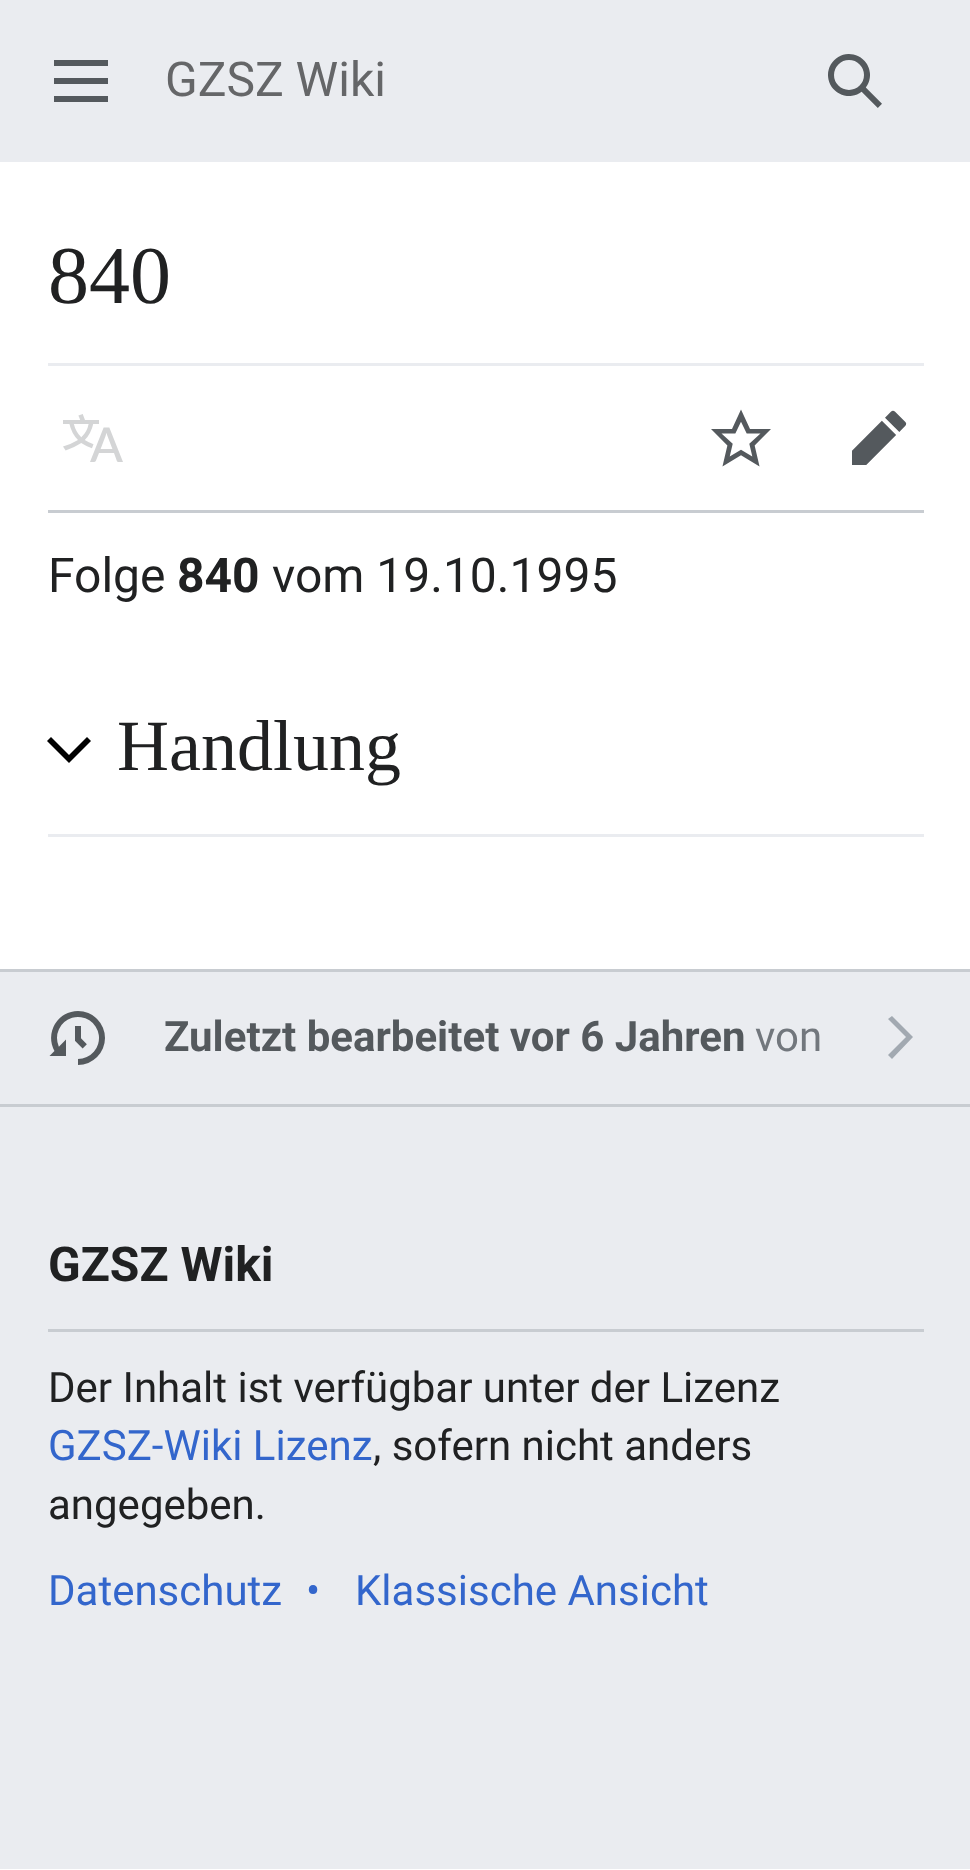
<svg xmlns="http://www.w3.org/2000/svg" width="970" height="1870">
<style>
.a{font:48px Roboto;fill:#656668}
.b{font:82px Liberation Serif;fill:#202122}
.c{font:48px Roboto;fill:#202122}
.d{font:bold 48px Roboto;fill:#202122}
.e{font:72px Liberation Serif;fill:#202122}
.f{font:bold 42px Roboto;fill:#54595d}
.g{font:42px Roboto;fill:#72777d}
.h{font:42px Roboto;fill:#202122}
.i{font:42px Roboto;fill:#36c}
</style>
<rect width="100%" height="100%" fill="#fff"/>
<path fill="#eaecf0" d="M0 0h970v1869H0z"/>
<image href="1.png" x="54" y="60" width="54" height="42"/>
<image href="2.png" x="828" y="54" width="54" height="54"/>
<path fill="#fff" d="M0 162h970v807H0z"/>
<path fill="#eaecf0" d="M48 363h876v3H48z"/>
<path fill="#c8ccd1" d="M48 510h876v3H48z"/>
<image href="3.png" x="63" y="414" width="60" height="48"/>
<image href="4.png" x="711" y="409" width="60" height="58"/>
<image href="5.png" x="852" y="410" width="55" height="55"/>
<path fill="#eaecf0" d="M48 834h876v3H48z"/>
<path fill="#000" d="M87 737l-18 18l-18-18l-4 4l22 22l22-22z"/>
<path fill="#c8ccd1" d="M0 969h970v3H0z"/>
<path fill="#c8ccd1" d="M0 1104h970v3H0z"/>
<image href="6.png" x="49" y="1011" width="56" height="54"/>
<path fill="#a2a9b1" d="M888 1019l18 18l-18 18l4 4l21-22l-21-21z"/>
<path fill="#c8ccd1" d="M48 1329h876v3H48z"/>
<text class="a" x="165" y="96">GZSZ Wiki</text>
<text class="b" x="48" y="303">840</text>
<text class="c" x="48" y="592">Folge</text>
<text class="d" x="177" y="592">840</text>
<text class="c" x="272" y="592">vom 19.10.1995</text>
<text class="e" x="117" y="770">Handlung</text>
<text class="f" x="164" y="1051">Zuletzt bearbeitet vor 6 Jahren</text>
<text class="g" x="755" y="1051">von</text>
<text class="d" x="48" y="1281">GZSZ Wiki</text>
<text class="h" x="48" y="1402">Der Inhalt ist verfügbar unter der Lizenz</text>
<text class="i" x="48" y="1460">GZSZ-Wiki Lizenz</text>
<text class="h" x="373" y="1460">, sofern nicht anders</text>
<text class="h" x="48" y="1519">angegeben.</text>
<text class="i" x="48" y="1605">Datenschutz</text>
<text class="i" x="306" y="1605">•</text>
<text class="i" x="355" y="1605">Klassische Ansicht</text>
</svg>
